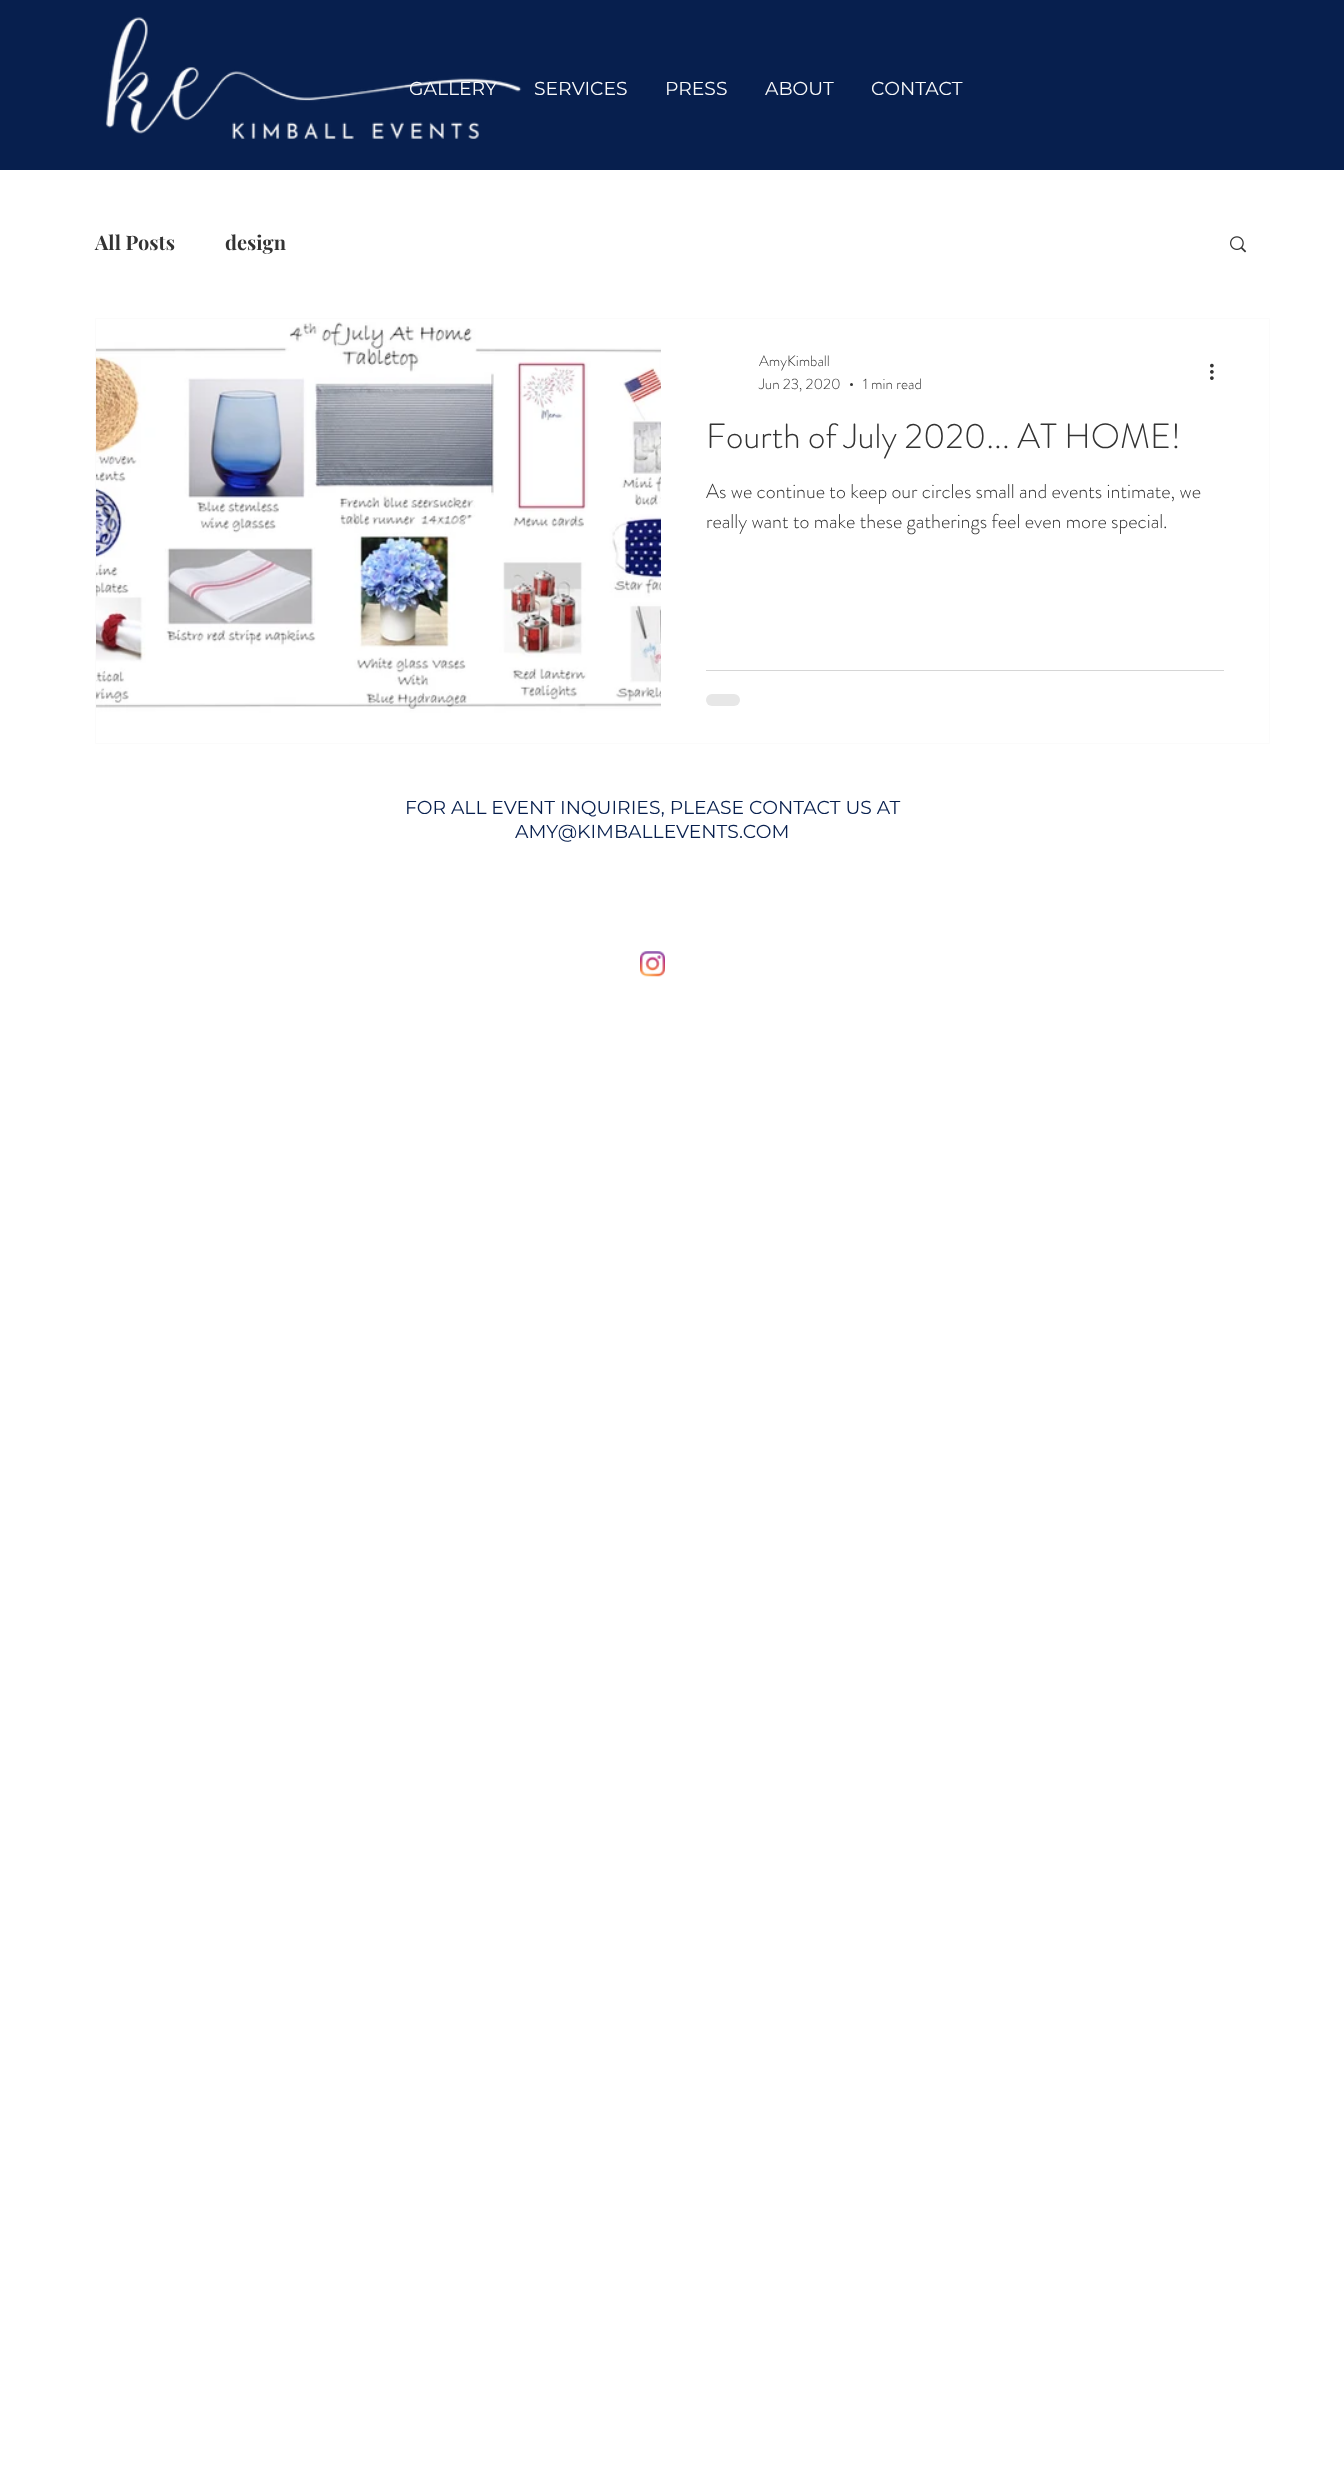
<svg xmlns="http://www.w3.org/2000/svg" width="1344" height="2476">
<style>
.a{font:18.75px Montserrat;fill:#fafafa}
.b{font:bold 20px Playfair Display;fill:#333}
.c{font:300 15px 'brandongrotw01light';fill:#333}
.d{font:300 35px 'brandongrotw01light';fill:#333}
.e{font:300 20px 'brandongrotw01light';fill:#333}
.f{font:18.75px Montserrat;fill:#071f4e}
</style>
<rect width="100%" height="100%" fill="#fff"/>
<path fill="#071f4e" d="M0 0h1344v170H0z"/>
<image href="2.png" x="1230" y="236" width="17" height="17"/>
<path fill="none" stroke="#fbfbfb" d="M95.5 318.5h1174v425H95.5z"/>
<image href="3.png" x="96" y="319" width="565" height="424"/>
<circle fill="#333" cx="851.5" cy="384.5" r="1.5"/>
<image href="4.png" x="1210" y="363" width="4" height="17"/>
<path fill="#d6d6d6" d="M706 670h518v1H706z"/>
<rect fill="#e7e7e7" x="706" y="694" width="34" height="12" rx="6"/>
<image href="5.png" x="640" y="951" width="25" height="26"/>
<text class="a" x="409" y="95">GALLERY</text>
<image href="1.png" x="105" y="17" width="417" height="122"/>
<text class="a" x="534" y="95">SERVICES</text>
<text class="a" x="665" y="95">PRESS</text>
<text class="a" x="765" y="95">ABOUT</text>
<text class="a" x="871" y="95">CONTACT</text>
<text class="b" x="95" y="250">All Posts</text>
<text class="b" x="225" y="250">design</text>
<text class="c" x="759" y="366">AmyKimball</text>
<text class="c" x="759" y="389">Jun 23, 2020</text>
<text class="c" x="863" y="389">1 min read</text>
<text class="d" x="706" y="448">Fourth of July 2020... AT HOME!</text>
<text class="e" x="706" y="498">As we continue to keep our circles small and events intimate, we</text>
<text class="e" x="706" y="528">really want to make these gatherings feel even more special.</text>
<text class="f" x="405" y="814">FOR ALL EVENT INQUIRIES, PLEASE CONTACT US AT</text>
<text class="f" x="515" y="838">AMY@KIMBALLEVENTS.COM</text>
</svg>
